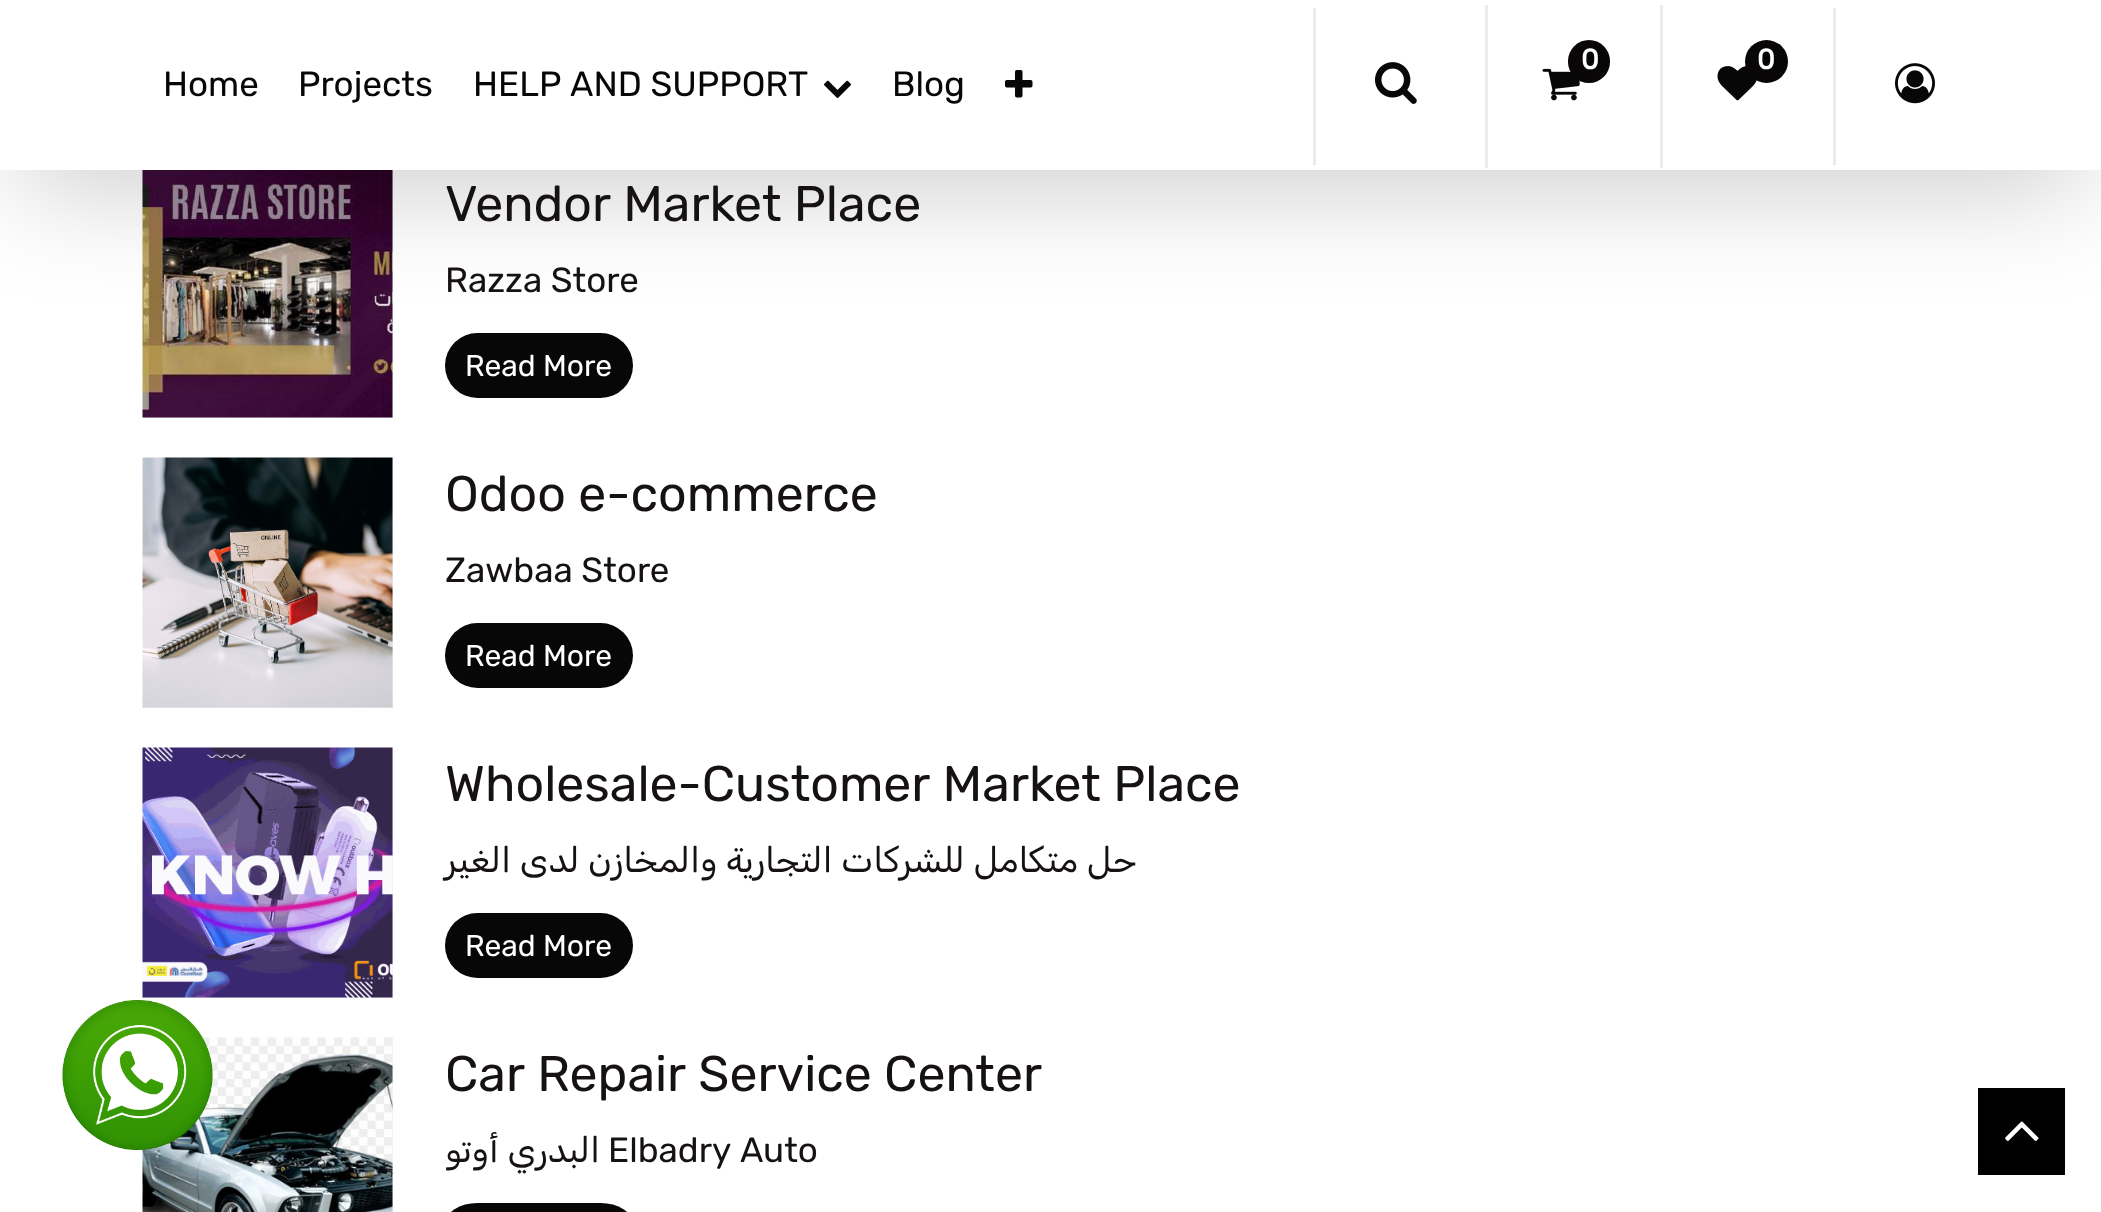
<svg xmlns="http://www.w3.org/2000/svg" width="2101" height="1212">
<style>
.a{font:bold 28px Rubik;fill:#fff}
.b{font:300 35px Rubik;fill:#070707}
.c{font:300 50px Rubik;fill:#161212}
.d{font:300 35px Rubik;fill:#161212}
.e{font:300 30px Rubik;fill:#fff}
.f{font:300 35px Rubik;direction:rtl;fill:#161212}
</style>
<rect width="100%" height="100%" fill="#fff"/>
<path fill="#e9ecef" d="M392 1038h1v174H392z"/>
<image href="11.png" x="142" y="1037" width="251" height="175"/>
<image href="1.png" x="62" y="1000" width="151" height="150"/>
<path fill="#e9ecef" d="M143 170h250v248H143z"/>
<image href="8.png" x="142" y="170" width="251" height="248"/>
<rect fill="#070707" x="445" y="333" width="188" height="65" rx="32.5"/>
<path fill="#00000033" filter="blur(56px)" d="M20 58h2063v130H20z"/>
<path fill="#fff" d="M0 0h2101v170H0z"/>
<path fill="#ebebeb" d="M1313 8h3v157H1313z"/>
<image href="2.png" x="1375" y="62" width="42" height="42"/>
<path fill="#ebebeb" d="M1485 5h3v163H1485z"/>
<image href="3.png" x="1542" y="68" width="38" height="33"/>
<rect fill="#080606" x="1568" y="40" width="42" height="43" rx="21"/>
<path fill="#ebebeb" d="M1660 5h3v163H1660z"/>
<image href="4.png" x="1717" y="66" width="40" height="35"/>
<circle fill="#080606" cx="1766.5" cy="61.5" r="21.5"/>
<path fill="#ebebeb" d="M1833 8h3v157H1833z"/>
<image href="5.png" x="1895" y="63" width="40" height="41"/>
<image href="6.png" x="824" y="80" width="27" height="18"/>
<image href="7.png" x="1005" y="70" width="28" height="28"/>
<path fill="#e9ecef" d="M143 458h250v250H143z"/>
<image href="9.png" x="142" y="457" width="251" height="251"/>
<rect fill="#070707" x="445" y="623" width="188" height="65" rx="32.5"/>
<path fill="#e9ecef" d="M143 748h250v250H143z"/>
<image href="10.png" x="142" y="747" width="251" height="251"/>
<rect fill="#070707" x="445" y="913" width="188" height="65" rx="32.5"/>
<rect fill="#070707" x="445" y="1203" width="188" height="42" rx="32.5"/>
<path fill="#000" d="M1978 1088h87v87H1978z"/>
<image href="12.png" x="2005" y="1121" width="34" height="20"/>
<text class="a" x="1581" y="69">0</text>
<text class="a" x="1757" y="69">0</text>
<text class="b" x="163" y="96">Home</text>
<text class="b" x="298" y="96">Projects</text>
<text class="b" x="473" y="96">HELP AND SUPPORT</text>
<text class="b" x="892" y="96">Blog</text>
<text class="c" x="445" y="221">Vendor Market Place</text>
<text class="d" x="445" y="292">Razza Store</text>
<text class="e" x="465" y="376">Read More</text>
<text class="c" x="445" y="511">Odoo e-commerce</text>
<text class="d" x="445" y="582">Zawbaa Store</text>
<text class="e" x="465" y="666">Read More</text>
<text class="c" x="445" y="801">Wholesale-Customer Market Place</text>
<text class="f" x="1137" y="872">حل متكامل للشركات التجارية والمخازن لدى الغير</text>
<text class="e" x="465" y="956">Read More</text>
<text class="c" x="445" y="1091">Car Repair Service Center</text>
<text class="f" x="600" y="1162">البدري أوتو</text>
<text class="d" x="608" y="1162">Elbadry Auto</text>
</svg>
